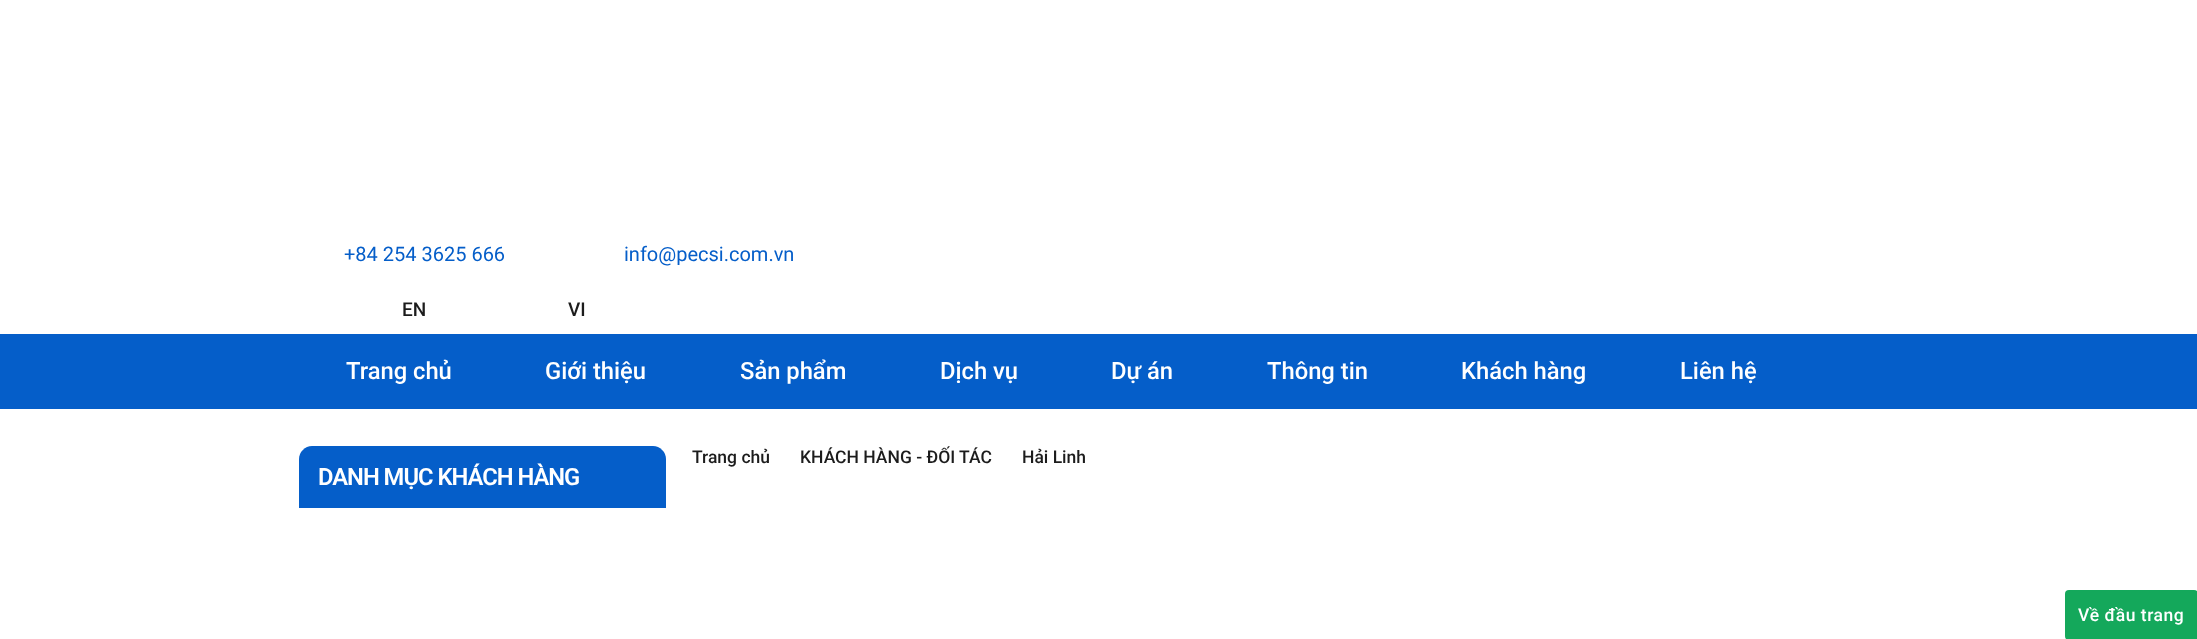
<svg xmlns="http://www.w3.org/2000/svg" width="2197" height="639">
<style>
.a{font:20px Roboto;fill:#055ec9}
.b{font:500 19px Roboto;fill:#1c1c1c}
.c{font:500 23.75px Roboto;fill:#fff}
.d{font:500 17.5px Roboto;fill:#1c1c1c}
.e{font:600 23.75px Roboto;letter-spacing:-1px;fill:#fff}
.f{font:500 17.5px Roboto;letter-spacing:0.5px;fill:#fff}
</style>
<rect width="100%" height="100%" fill="#fff"/>
<path fill="#055ec9" d="M0 334h2197v75H0z"/>
<path fill="#055ec9" d="M312 446h341c7 0 13 6 13 13v49h-367v-49c0-7 6-13 13-13z"/>
<rect fill="#14a85b" x="2065" y="590" width="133" height="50" rx="4"/>
<text class="a" x="344" y="261">+84 254 3625 666</text>
<text class="a" x="624" y="261">info@pecsi.com.vn</text>
<text class="b" x="402" y="316">EN</text>
<text class="b" x="568" y="316">VI</text>
<text class="c" x="346" y="379">Trang chủ</text>
<text class="c" x="545" y="379">Giới thiệu</text>
<text class="c" x="740" y="379">Sản phẩm</text>
<text class="c" x="940" y="379">Dịch vụ</text>
<text class="c" x="1111" y="379">Dự án</text>
<text class="c" x="1267" y="379">Thông tin</text>
<text class="c" x="1461" y="379">Khách hàng</text>
<text class="c" x="1680" y="379">Liên hệ</text>
<text class="d" x="692" y="463">Trang chủ</text>
<text class="d" x="800" y="463">KHÁCH HÀNG - ĐỐI TÁC</text>
<text class="d" x="1022" y="463">Hải Linh</text>
<text class="e" x="318" y="485">DANH MỤC KHÁCH HÀNG</text>
<text class="f" x="2078" y="621">Về đầu trang</text>
</svg>
